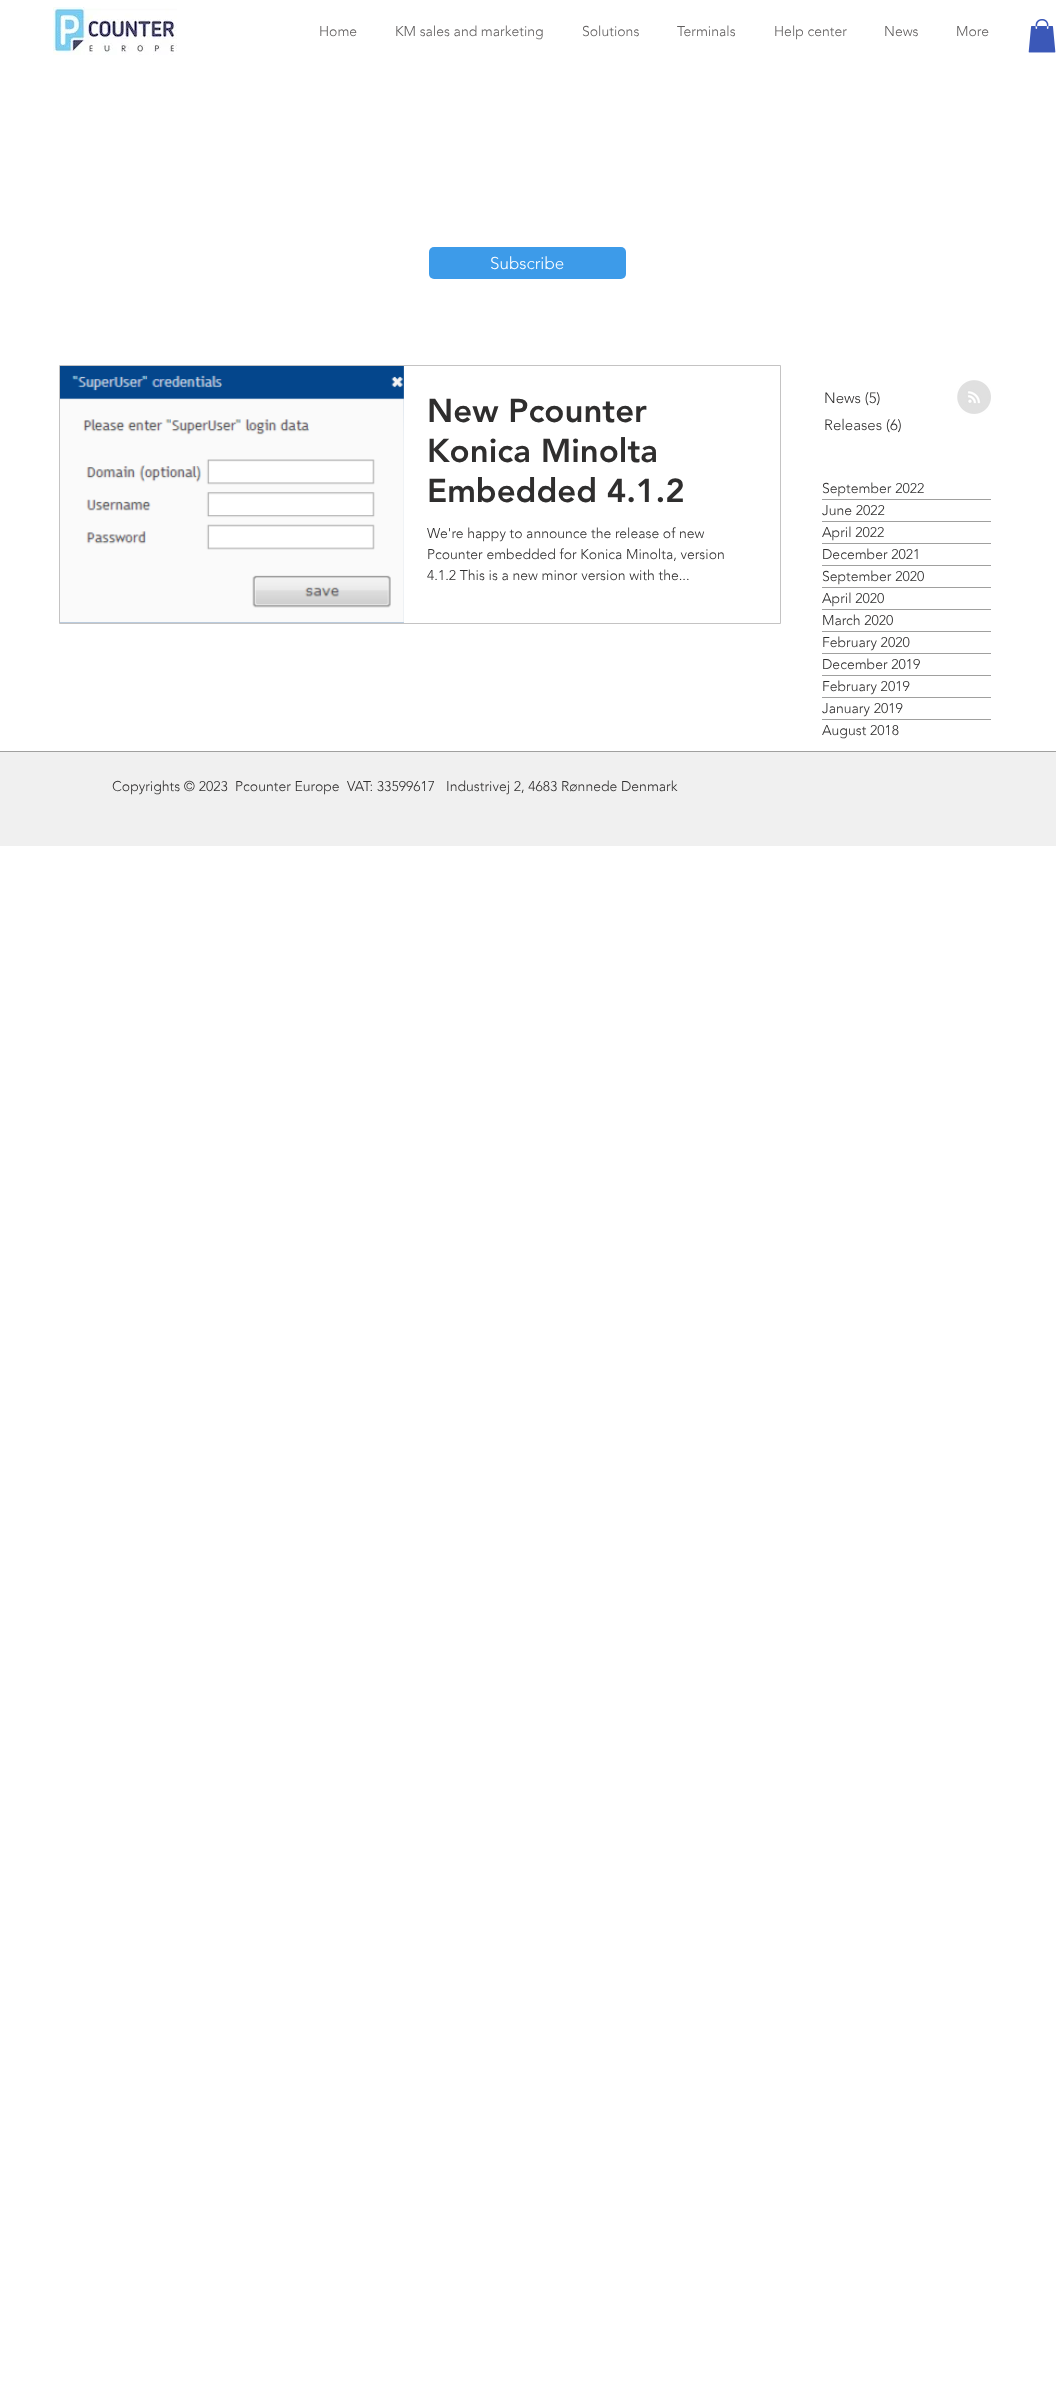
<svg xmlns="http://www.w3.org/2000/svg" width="1056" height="2390">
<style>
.a{font:300 14px 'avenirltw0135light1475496';fill:#605e5e}
.b{font:300 17px 'avenirltw0135light1475496';fill:#fff}
.c{font:900 33px 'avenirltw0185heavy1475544';fill:#2f2e2e}
.d{font:300 14px 'avenirltw0135light1475496';fill:#2f2e2e}
.e{font:300 15px 'avenirltw0135light1475496';fill:#2f2e2e}
</style>
<rect width="100%" height="100%" fill="#fff"/>
<image href="1.png" x="53" y="7" width="124" height="48"/>
<image href="2.png" x="1028" y="19" width="28" height="34"/>
<rect fill="#3d9be9" x="429" y="247" width="197" height="32" rx="5"/>
<path fill="none" stroke="#c4c3c3" d="M59.5 365.5h721v258H59.5z"/>
<image href="4.png" x="403" y="366" width="1" height="257"/>
<image href="3.png" x="60" y="366" width="344" height="257"/>
<image href="5.png" x="957" y="380" width="34" height="34"/>
<path fill="#a0a09f" d="M822 499h169v1H822z"/>
<path fill="#a0a09f" d="M822 521h169v1H822z"/>
<path fill="#a0a09f" d="M822 543h169v1H822z"/>
<path fill="#a0a09f" d="M822 565h169v1H822z"/>
<path fill="#a0a09f" d="M822 587h169v1H822z"/>
<path fill="#a0a09f" d="M822 609h169v1H822z"/>
<path fill="#a0a09f" d="M822 631h169v1H822z"/>
<path fill="#a0a09f" d="M822 653h169v1H822z"/>
<path fill="#a0a09f" d="M822 675h169v1H822z"/>
<path fill="#a0a09f" d="M822 697h169v1H822z"/>
<path fill="#a0a09f" d="M822 719h169v1H822z"/>
<path fill="#f0f0f0" d="M0 752h1056v94H0z"/>
<path fill="#a0a09f" d="M0 751h1056v1H0z"/>
<text class="a" x="319" y="36">Home</text>
<text class="a" x="395" y="36">KM sales and marketing</text>
<text class="a" x="582" y="36">Solutions</text>
<text class="a" x="677" y="36">Terminals</text>
<text class="a" x="774" y="36">Help center</text>
<text class="a" x="884" y="36">News</text>
<text class="a" x="956" y="36">More</text>
<text class="b" x="490" y="269">Subscribe</text>
<text class="c" x="427" y="422">New Pcounter</text>
<text class="c" x="427" y="462">Konica Minolta</text>
<text class="c" x="427" y="502">Embedded 4.1.2</text>
<text class="d" x="427" y="538">We're happy to announce the release of new</text>
<text class="d" x="427" y="559">Pcounter embedded for Konica Minolta, version</text>
<text class="d" x="427" y="580">4.1.2 This is a new minor version with the...</text>
<text class="e" x="824" y="403">News (5)</text>
<text class="e" x="824" y="430">Releases (6)</text>
<text class="d" x="822" y="493">September 2022</text>
<text class="d" x="822" y="515">June 2022</text>
<text class="d" x="822" y="537">April 2022</text>
<text class="d" x="822" y="559">December 2021</text>
<text class="d" x="822" y="581">September 2020</text>
<text class="d" x="822" y="603">April 2020</text>
<text class="d" x="822" y="625">March 2020</text>
<text class="d" x="822" y="647">February 2020</text>
<text class="d" x="822" y="669">December 2019</text>
<text class="d" x="822" y="691">February 2019</text>
<text class="d" x="822" y="713">January 2019</text>
<text class="d" x="822" y="735">August 2018</text>
<text class="d" xml:space="preserve" x="112" y="791">Copyrights © 2023  Pcounter Europe  VAT: 33599617   Industrivej 2, 4683 Rønnede Denmark</text>
</svg>
